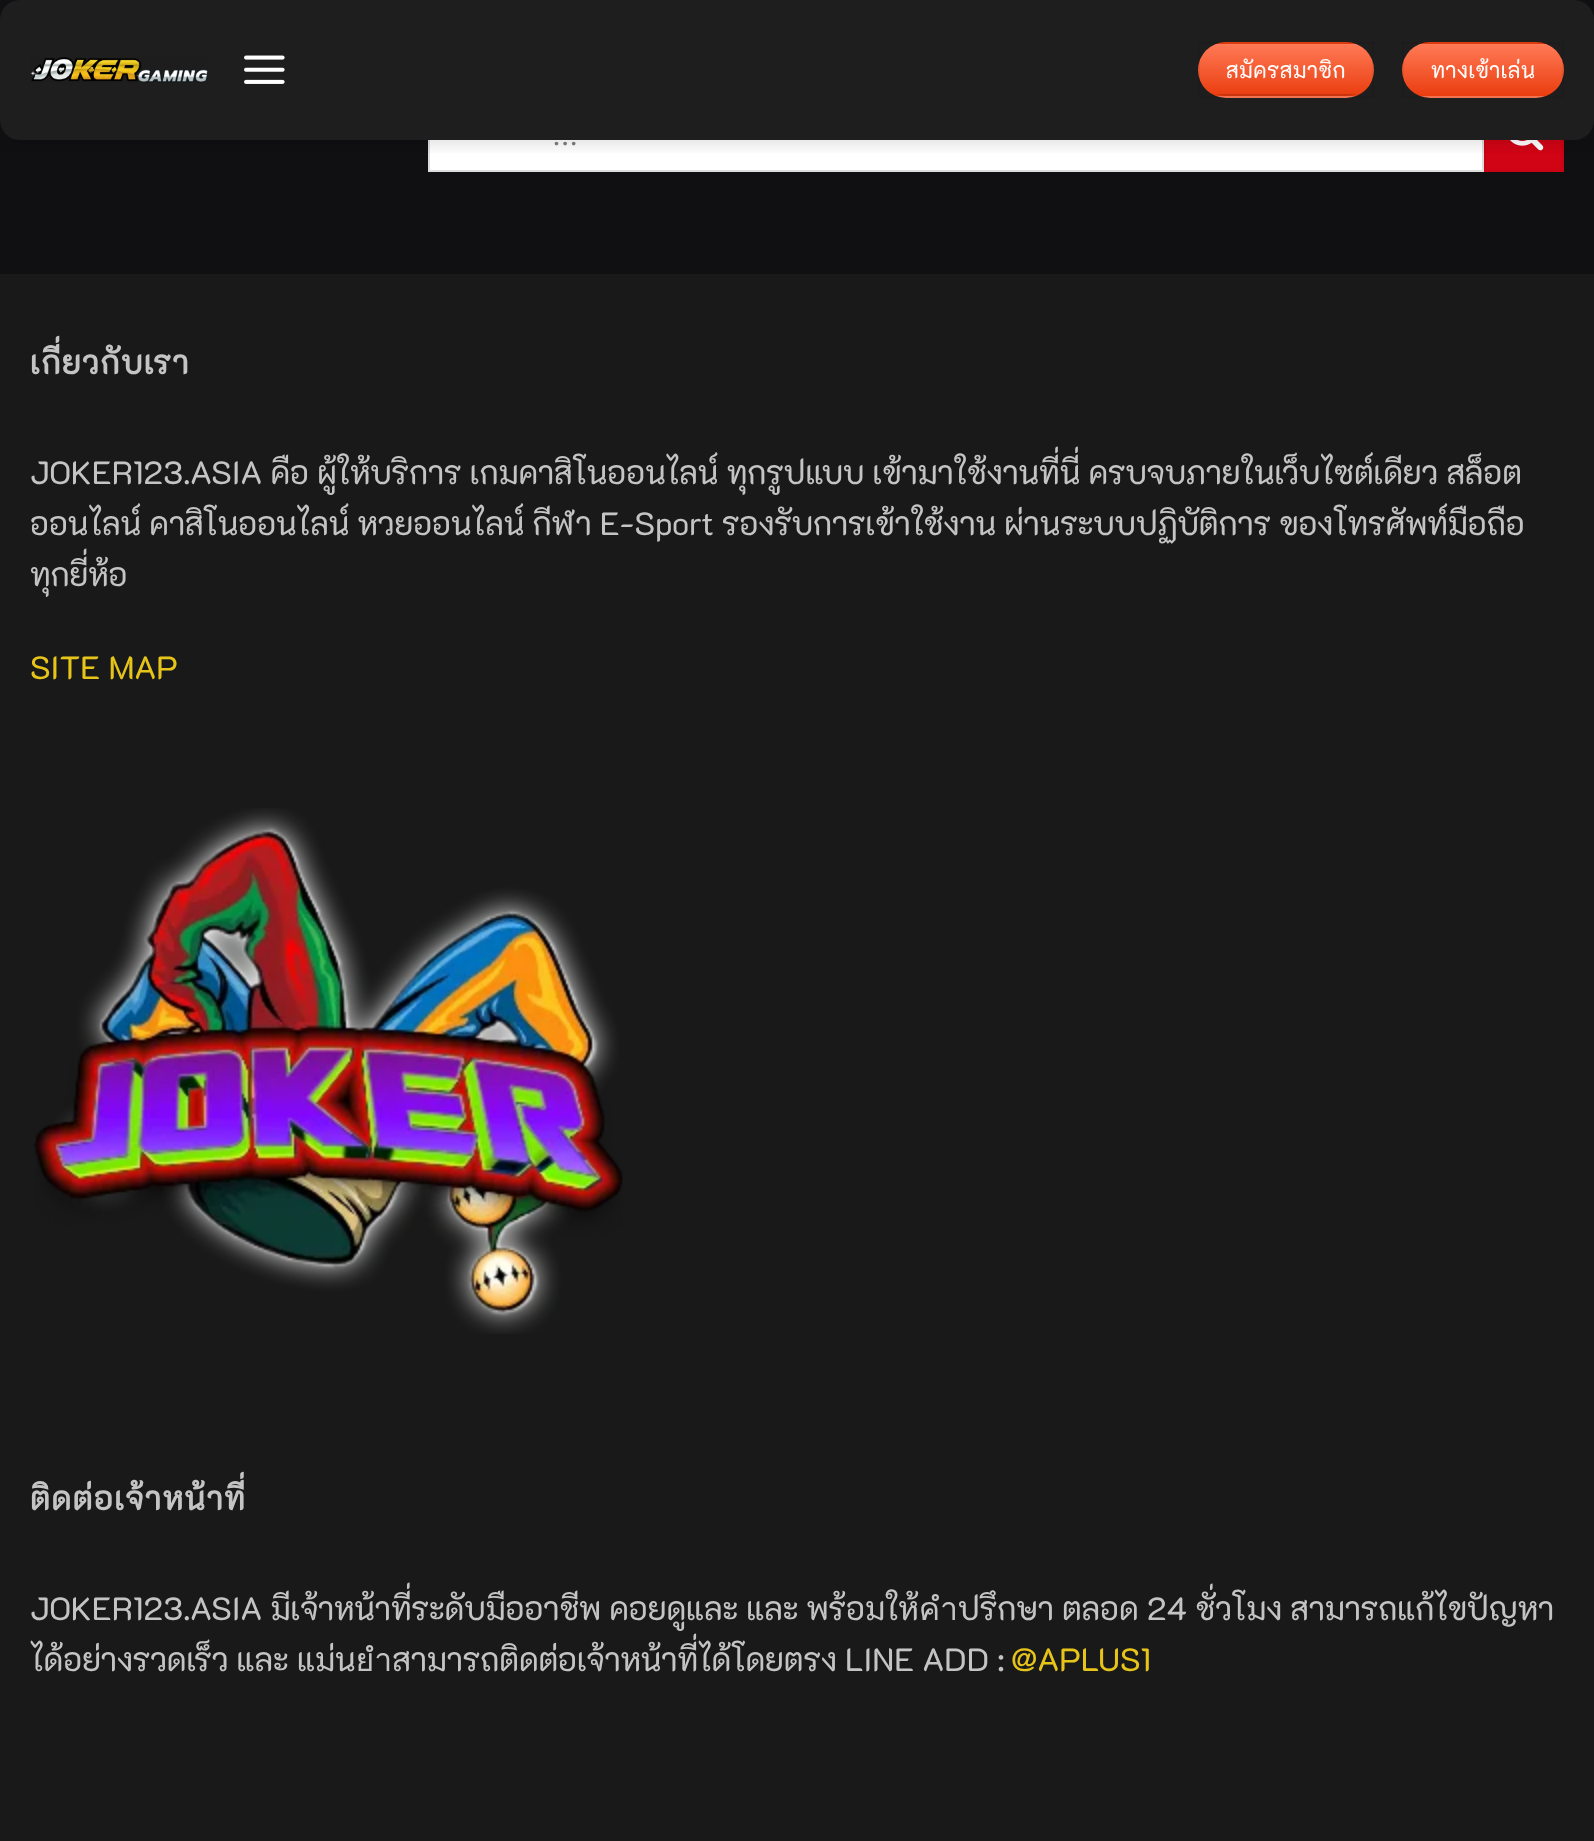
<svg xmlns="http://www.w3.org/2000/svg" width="1594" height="1841">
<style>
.a{font:21.75px 'K2D';letter-spacing:0.6px;fill:#fff}
.b{font:200 32px 'K2D';fill:#757575}
.c{font:bold 32px 'K2D';letter-spacing:1.6px;fill:#c4c4c4}
.d{font:32px 'K2D';fill:#c4c4c4}
.e{font:32px 'K2D';fill:#e6c41a}
</style>
<defs>
<clipPath id="clip1"><path d="M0 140h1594v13H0z"/></clipPath>
<clipPath id="clip2"><rect x="1198" y="42" width="176" height="56" rx="28"/></clipPath>
<linearGradient id="g1" gradientUnits="userSpaceOnUse" x1="1286" y1="-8" x2="1286" y2="44"><stop offset="0" stop-color="#ff7a56"/><stop offset="1" stop-color="#ea3d0f"/></linearGradient>
<linearGradient id="g2" gradientUnits="userSpaceOnUse" x1="1286" y1="44" x2="1286" y2="96"><stop offset="0" stop-color="#ff7a56"/><stop offset="1" stop-color="#ea3d0f"/></linearGradient>
<linearGradient id="g3" gradientUnits="userSpaceOnUse" x1="1286" y1="96" x2="1286" y2="148"><stop offset="0" stop-color="#ff7a56"/><stop offset="1" stop-color="#ea3d0f"/></linearGradient>
<clipPath id="clip3"><rect x="1402" y="42" width="162" height="56" rx="28"/></clipPath>
<linearGradient id="g4" gradientUnits="userSpaceOnUse" x1="1483" y1="-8" x2="1483" y2="44"><stop offset="0" stop-color="#ff7a56"/><stop offset="1" stop-color="#ea3d0f"/></linearGradient>
<linearGradient id="g5" gradientUnits="userSpaceOnUse" x1="1483" y1="44" x2="1483" y2="96"><stop offset="0" stop-color="#ff7a56"/><stop offset="1" stop-color="#ea3d0f"/></linearGradient>
<linearGradient id="g6" gradientUnits="userSpaceOnUse" x1="1483" y1="96" x2="1483" y2="148"><stop offset="0" stop-color="#ff7a56"/><stop offset="1" stop-color="#ea3d0f"/></linearGradient>
</defs>
<rect width="100%" height="100%" fill="#101012"/>
<path fill="#fff" d="M430 140h1052v30H430z"/>
<path fill="none" stroke="#ddd" stroke-width="2" d="M429 93h1054v78H429z"/>
<path fill="#d10415" d="M1486 140h76v30H1486z"/>
<path fill="none" stroke="#c70414" stroke-width="2" d="M1485 93h78v78H1485z"/>
<image href="3.png" x="1510" y="140" width="34" height="11"/>
<g clip-path="url(#clip1)">
<path fill="#00000026" filter="blur(10px)" d="M2 2h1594v140H2z"/>
</g>
<rect fill="#1e1e1e" width="1594" height="140" rx="20"/>
<image href="1.png" x="30" y="57" width="178" height="26"/>
<image href="2.png" x="244" y="55" width="41" height="29"/>
<g clip-path="url(#clip2)">
<path fill="url(#g1)" d="M1215 42h142v2H1215z"/>
<path fill="url(#g2)" d="M1198 44h176v52H1198z"/>
<path fill="url(#g3)" d="M1215 96h141v2H1215z"/>
</g>
<path fill="none" stroke="#0000000d" stroke-width="2" d="M1199 43h174v54H1199z"/>
<path fill="#00000026" d="M1356 94h-140c3 1 6 2 10 2h120c4 0 7-1 10-2z"/>
<g clip-path="url(#clip3)">
<path fill="url(#g4)" d="M1419 42h128v2H1419z"/>
<path fill="url(#g5)" d="M1402 44h162v52H1402z"/>
<path fill="url(#g6)" d="M1419 96h127v2H1419z"/>
</g>
<path fill="none" stroke="#0000000d" stroke-width="2" d="M1403 43h160v54H1403z"/>
<path fill="#191919" d="M0 274h1594v1567H0z"/>
<image href="4.png" x="34" y="808" width="589" height="526"/>
<text class="a" x="1226" y="78">สมัครสมาชิก</text>
<text class="a" x="1431" y="78">ทางเข้าเล่น</text>
<text class="b" x="553" y="145">…</text>
<text class="c" x="30" y="374">เกี่ยวกับเรา</text>
<text class="d" x="30" y="484">JOKER123.ASIA คือ ผู้ให้บริการ เกมคาสิโนออนไลน์ ทุกรูปแบบ เข้ามาใช้งานที่นี่ ครบจบภายในเว็บไซต์เดียว สล็อต</text>
<text class="d" x="30" y="535">ออนไลน์ คาสิโนออนไลน์ หวยออนไลน์ กีฬา E-Sport รองรับการเข้าใช้งาน ผ่านระบบปฏิบัติการ ของโทรศัพท์มือถือ</text>
<text class="d" x="30" y="586">ทุกยี่ห้อ</text>
<text class="e" x="30" y="679">SITE MAP</text>
<text class="c" x="30" y="1510">ติดต่อเจ้าหน้าที่</text>
<text class="d" x="30" y="1620">JOKER123.ASIA มีเจ้าหน้าที่ระดับมืออาชีพ คอยดูและ และ พร้อมให้คำปรึกษา ตลอด 24 ชั่วโมง สามารถแก้ไขปัญหา</text>
<text class="d" x="30" y="1671">ได้อย่างรวดเร็ว และ แม่นยำสามารถติดต่อเจ้าหน้าที่ได้โดยตรง LINE ADD :</text>
<text class="e" x="1011" y="1671">@APLUS1</text>
</svg>
